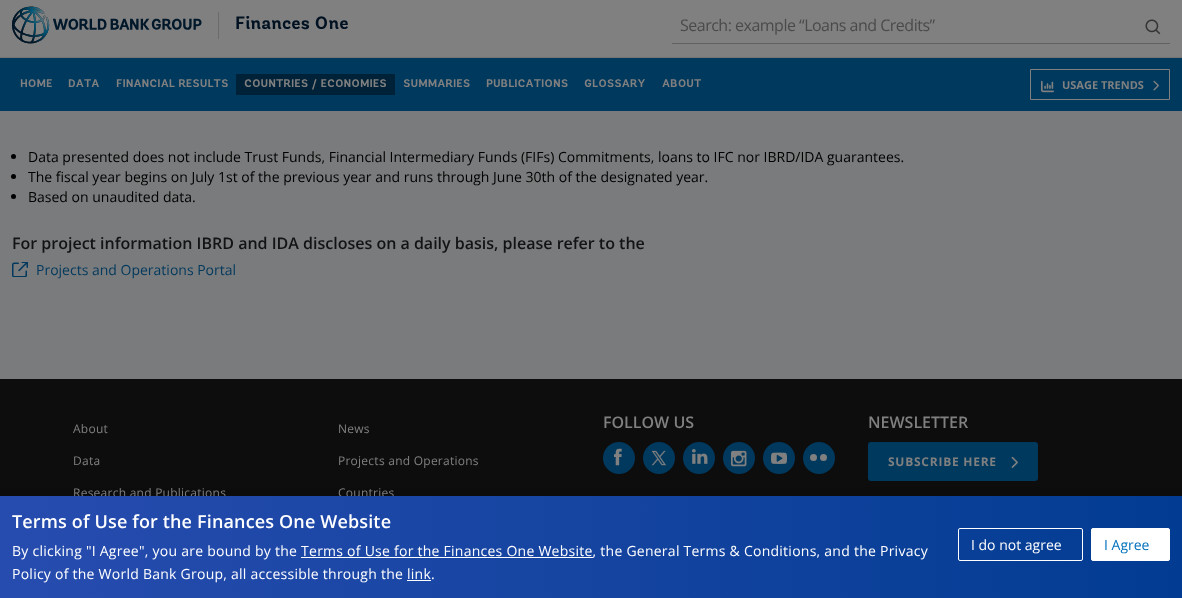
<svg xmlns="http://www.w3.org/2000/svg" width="1182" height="598">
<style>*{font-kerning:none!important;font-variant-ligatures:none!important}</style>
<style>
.a{font:bold 18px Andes;fill:#012}
.b{font:16px Open Sans;letter-spacing:-0.5px;fill:#4a4a4a}
.c{font:bold 11px Andes;fill:#808080}
.d{font:bold 11px Open Sans;fill:#808080}
.e{font:14px Open Sans;fill:#000}
.f{font:600 16px Open Sans;fill:#111315}
.g{font:14px Open Sans;fill:#00395e}
.h{font:12px Open Sans;letter-spacing:0.25px;fill:#808080}
.i{font:600 16px Open Sans;fill:#808080}
.j{font:bold 12px Open Sans;letter-spacing:0.75px;fill:#808080}
.k{font:600 18px Open Sans;letter-spacing:0.15px;fill:#fff}
.l{font:14px Open Sans;letter-spacing:0.25px;fill:#fff}
.m{font:14px Open Sans;fill:#fff}
.n{font:14px Open Sans;fill:#0071bc}
</style>
<defs>
<linearGradient id="g1" gradientUnits="userSpaceOnUse" x1="0" y1="547" x2="1182" y2="547"><stop offset="0" stop-color="#274caf"/><stop offset="1" stop-color="#023c92"/></linearGradient>
</defs>
<rect width="100%" height="100%" fill="#7a7b7c"/>
<path fill="#808080" d="M0 0h1182v57H0z"/>
<image href="1.png" x="12" y="6" width="190" height="38"/>
<path fill="#6b6b6b" d="M218 12h1v27H218z"/>
<path fill="#616161" d="M672 43h498v1H672z"/>
<image href="2.png" x="1145" y="19" width="16" height="16"/>
<path fill="#00395e" d="M0 58h1182v53H0z"/>
<path fill="#737373" d="M0 57h1182v1H0z"/>
<path fill="#002238" d="M236 74h159v21H236z"/>
<path fill="none" stroke="#808080" d="M1030.5 69.5h139v30H1030.5z"/>
<image href="3.png" x="1041" y="80" width="13" height="13"/>
<image href="4.png" x="1153" y="80" width="6" height="11"/>
<circle fill="#000" cx="13.5" cy="156.5" r="2.5"/>
<circle fill="#000" cx="13.5" cy="176.5" r="2.5"/>
<circle fill="#000" cx="13.5" cy="196.5" r="2.5"/>
<image href="5.png" x="12" y="262" width="16" height="15"/>
<path fill="#0d0d0d" d="M0 379h1182v117H0z"/>
<image href="6.png" x="603" y="442" width="32" height="32"/>
<circle fill="#00395e" cx="659" cy="458" r="16"/>
<image href="7.png" x="651" y="450" width="15" height="16"/>
<image href="8.png" x="683" y="442" width="32" height="32"/>
<image href="9.png" x="723" y="442" width="32" height="32"/>
<image href="10.png" x="763" y="442" width="32" height="32"/>
<circle fill="#00395e" cx="819" cy="458" r="16"/>
<circle fill="#808080" cx="813.5" cy="457.5" r="3.5"/>
<circle fill="#808080" cx="823.5" cy="457.5" r="3.5"/>
<rect fill="#00395e" x="868" y="442" width="170" height="39" rx="3"/>
<image href="11.png" x="1011" y="456" width="7" height="12"/>
<path fill="#00000052" filter="blur(6px)" d="M0 500h1182v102H0z"/>
<text class="a" x="235" y="29" word-spacing="-1">Finances One</text>
<text class="b" x="680" y="31">Search: example “Loans and Credits”</text>
<text class="c" x="20" y="87">HOME</text>
<text class="c" x="68" y="87">DATA</text>
<text class="c" x="116" y="87">FINANCIAL RESULTS</text>
<text class="c" x="244" y="87">COUNTRIES / ECONOMIES</text>
<text class="c" x="403" y="87">SUMMARIES</text>
<text class="c" x="486" y="87">PUBLICATIONS</text>
<text class="c" x="584" y="87">GLOSSARY</text>
<text class="c" x="662" y="87">ABOUT</text>
<text class="d" x="1062" y="89">USAGE TRENDS</text>
<text class="e" x="28" y="162">Data presented does not include Trust Funds, Financial Intermediary Funds (FIFs) Commitments, loans to IFC nor IBRD/IDA guarantees.</text>
<text class="e" x="28" y="182">The fiscal year begins on July 1st of the previous year and runs through June 30th of the designated year.</text>
<text class="e" x="28" y="202">Based on unaudited data.</text>
<text class="f" x="12" y="249">For project information IBRD and IDA discloses on a daily basis, please refer to the</text>
<text class="g" x="36" y="275">Projects and Operations Portal</text>
<text class="h" x="73" y="433">About</text>
<text class="h" x="73" y="465">Data</text>
<text class="h" x="73" y="497">Research and Publications</text>
<text class="h" x="338" y="433">News</text>
<text class="h" x="338" y="465">Projects and Operations</text>
<text class="h" x="338" y="497">Countries</text>
<text class="i" x="603" y="428">FOLLOW US</text>
<text class="i" x="868" y="428">NEWSLETTER</text>
<text class="j" x="888" y="466">SUBSCRIBE HERE</text>
<path fill="url(#g1)" d="M0 496h1182v102H0z"/>
<text class="k" x="12" y="528">Terms of Use for the Finances One Website</text>
<text class="l" x="12" y="556">By clicking "I Agree", you are bound by the Terms of Use for the Finances One Website, the General Terms &amp; Conditions, and the Privacy</text>
<path fill="#fff" d="M301 557h292v1H301z"/>
<text class="l" x="12" y="579">Policy of the World Bank Group, all accessible through the link.</text>
<path fill="#fff" d="M407 580h24v1H407z"/>
<rect fill="none" stroke="#fff" x="958.5" y="528.5" width="124" height="32" rx="1.5"/>
<text class="m" x="971" y="550">I do not agree</text>
<rect fill="#fff" stroke="#fff" x="1091.5" y="528.5" width="78" height="32" rx="1.5"/>
<text class="n" x="1104" y="550">I Agree</text>
</svg>
